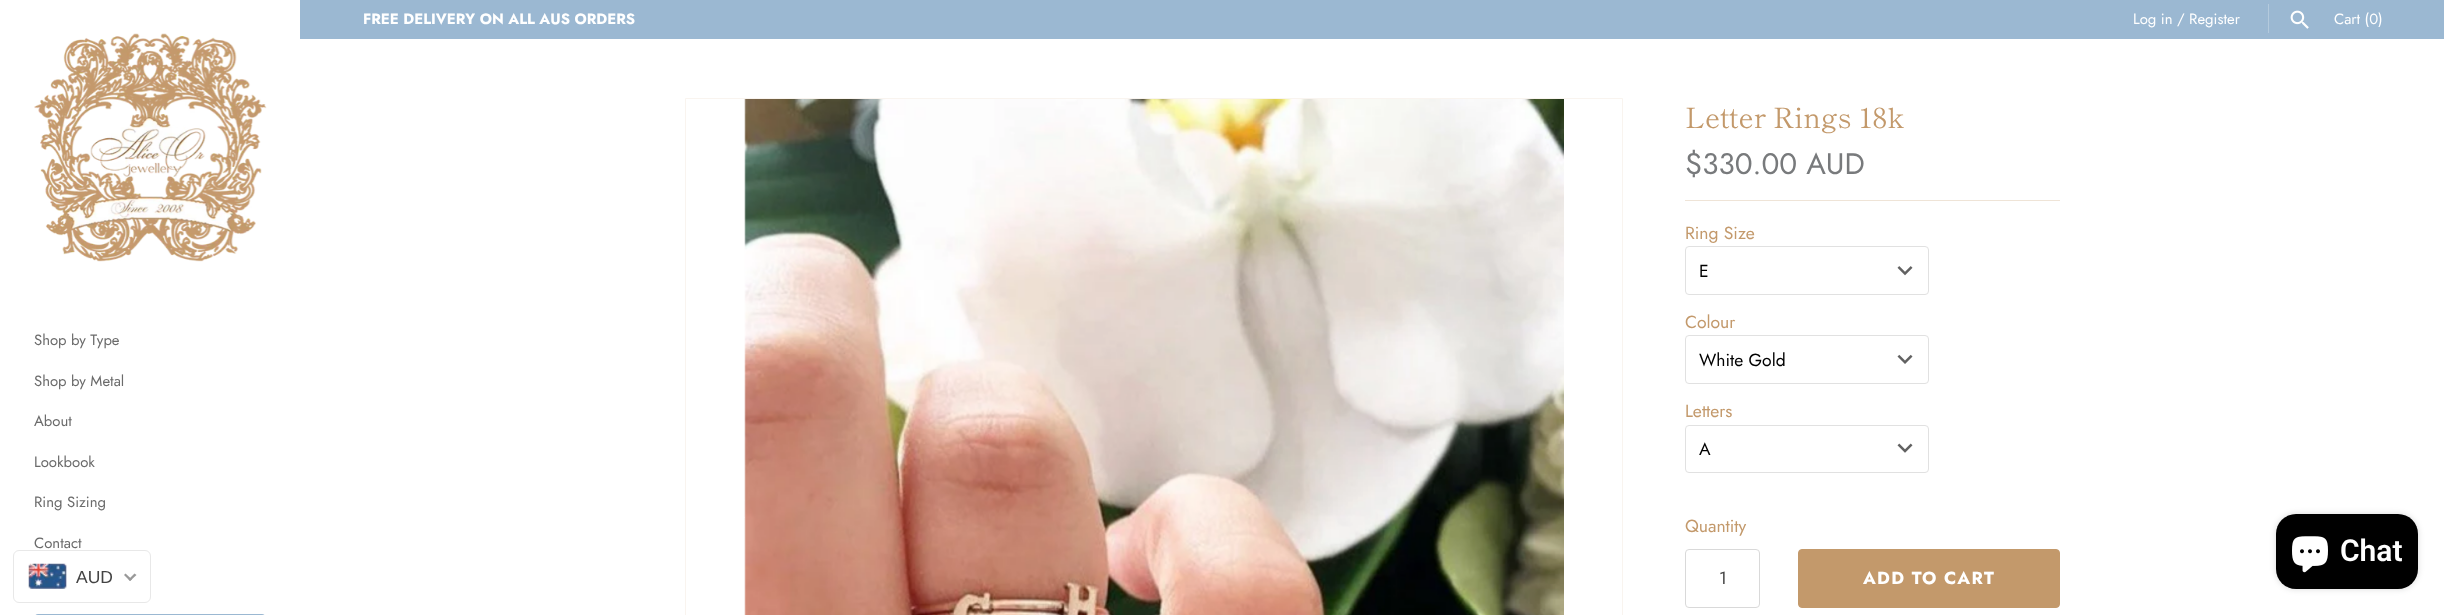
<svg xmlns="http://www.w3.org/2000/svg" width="2444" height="615">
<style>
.a{font:bold 14.9px Jost;fill:#fff}
.b{font:14.9px Jost;fill:#fff}
.c{font:14.9px Jost;fill:#6b6b6b}
.d{font:28px Shippori Mincho;fill:#c3996b}
.e{font:29.75px Jost;fill:#787a7c}
.f{font:17.5px Jost;fill:#c3996b}
.g{font:17.5px Jost;fill:#000}
.h{font:17.5px Jost;fill:#444}
.i{font:bold 17.5px Jost;letter-spacing:1.25px;fill:#fff}
.j{font:600 30px Roboto;fill:#fff}
.k{font:17.5px Liberation Sans;fill:#444}
</style>
<rect width="100%" height="100%" fill="#fff"/>
<path fill="#9bb8d2" d="M300 0h2144v39H300z"/>
<path fill="#b4cadd" d="M2268 4h1v29H2268z"/>
<image href="1.png" x="2290" y="10" width="19" height="19"/>
<image href="2.png" x="34" y="33" width="233" height="229"/>
<path fill="#9bb8d2" d="M38 614h224c2 0 4 2 4 4v-3h-232v3c0-2 2-4 4-4z"/>
<path fill="none" stroke="#f9f4ef" d="M685.5 98.5h937v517H685.5z"/>
<image href="3.png" x="744" y="99" width="820" height="516"/>
<path fill="#fff" d="M742.5 519l2-1.5l-8.5-8.5l8.5-9l-2-1.5l-10 10.5z"/>
<path fill="#efe4d7" d="M1685 200h375v1H1685z"/>
<image href="4.png" x="1897" y="266" width="16" height="10"/>
<rect fill="none" stroke="#e1e1e1" x="1685.5" y="246.5" width="243" height="48" rx="3.5"/>
<image href="5.png" x="1897" y="354" width="16" height="10"/>
<rect fill="none" stroke="#e1e1e1" x="1685.5" y="335.5" width="243" height="48" rx="3.5"/>
<image href="6.png" x="1897" y="443" width="16" height="10"/>
<rect fill="none" stroke="#e1e1e1" x="1685.5" y="425.5" width="243" height="47" rx="3.5"/>
<rect fill="none" stroke="#d9d9d9" x="1685.5" y="549.5" width="74" height="58" rx="3.5"/>
<rect fill="#c3996b" stroke="#c3996b" x="1798.5" y="549.5" width="261" height="58" rx="3.5"/>
<rect fill="#00000026" filter="blur(3px)" x="2276" y="514" width="142" height="75" rx="20"/>
<rect fill="#000" x="2276" y="514" width="142" height="75" rx="20"/>
<image href="7.png" x="2292" y="536" width="36" height="37"/>
<rect fill="none" stroke="#e8e8e8" x="13.5" y="550.5" width="137" height="52" rx="5.5"/>
<image href="8.png" x="28" y="563" width="39" height="26"/>
<path fill="#999" d="M134.5 573.5l2 1.5l-6.5 6l-1.5-1.5z"/>
<path fill="#999" d="M125.5 573.5l6.5 6l-2 1.5l-6-6z"/>
<text class="a" x="363" y="24">FREE DELIVERY ON ALL AUS ORDERS</text>
<text class="b" x="2133" y="24">Log in / Register</text>
<text class="b" x="2334" y="24">Cart (0)</text>
<text class="c" x="34" y="345">Shop by Type</text>
<text class="c" x="34" y="386">Shop by Metal</text>
<text class="c" x="34" y="426">About</text>
<text class="c" x="34" y="467">Lookbook</text>
<text class="c" x="34" y="507">Ring Sizing</text>
<text class="c" x="34" y="548">Contact</text>
<text class="d" x="1685" y="128">Letter Rings 18k</text>
<text class="e" x="1685" y="174">$330.00 AUD</text>
<text class="f" x="1685" y="239">Ring Size</text>
<text class="g" x="1699" y="277">E</text>
<text class="f" x="1685" y="328">Colour</text>
<text class="g" x="1699" y="366">White Gold</text>
<text class="f" x="1685" y="417">Letters</text>
<text class="g" x="1699" y="455">A</text>
<text class="f" x="1685" y="532">Quantity</text>
<text class="h" x="1719" y="584">1</text>
<text class="i" x="1863" y="584">ADD TO CART</text>
<text class="j" x="2340" y="561">Chat</text>
<text class="k" x="76" y="583">AUD</text>
</svg>
